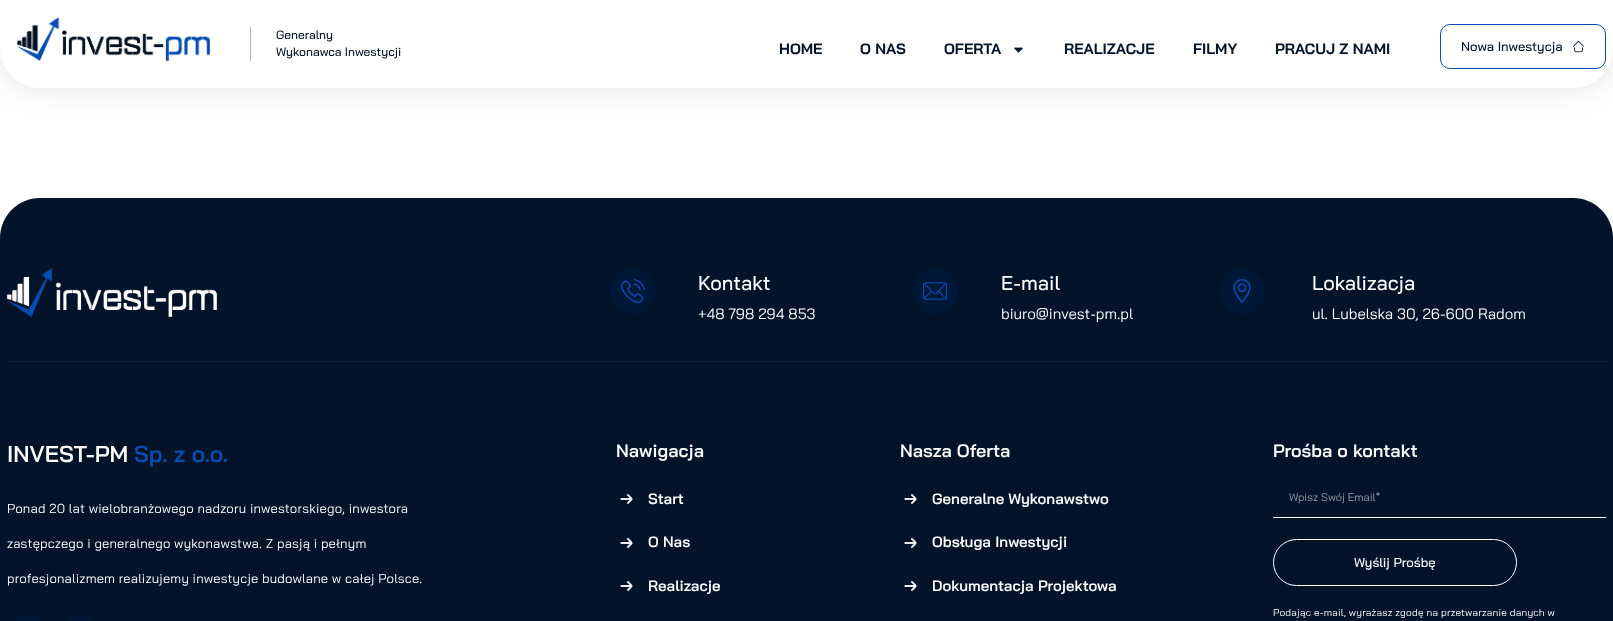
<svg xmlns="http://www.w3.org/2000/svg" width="1613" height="621">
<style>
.a{font:500 12px Bai Jamjuree;fill:#031329}
.b{font:bold 15px Bai Jamjuree;fill:#031329}
.c{font:500 13px Bai Jamjuree;fill:#031329}
.d{font:500 20px Bai Jamjuree;fill:#fff}
.e{font:15px Bai Jamjuree;fill:#fff}
.f{font:600 23px Bai Jamjuree;fill:#fff}
.g{font:600 23px Bai Jamjuree;fill:#084db2}
.h{font:13px Bai Jamjuree;letter-spacing:0.2px;fill:#fff}
.i{font:600 18px Bai Jamjuree;fill:#fff}
.j{font:600 15px Bai Jamjuree;fill:#fff}
.k{font:11px Bai Jamjuree;fill:#9aa1a9}
.l{font:500 13px Bai Jamjuree;fill:#fff}
.m{font:10px Bai Jamjuree;letter-spacing:0.2px;fill:#fff}
</style>
<rect width="100%" height="100%" fill="#fff"/>
<rect fill="#4d4d4d29" filter="blur(15px)" width="1613" height="88" rx="40"/>
<path fill="#fff" d="M0 0h1613v48c0 22-18 40-40 40h-1533c-22 0-40-18-40-40z"/>
<image href="1.png" x="17" y="17" width="193" height="44"/>
<path fill="#b8b8b8" d="M250 27h1v34H250z"/>
<image href="2.png" x="1014" y="47" width="9" height="6"/>
<rect fill="none" stroke="#084db2" x="1440.5" y="24.5" width="165" height="44" rx="9.5"/>
<image href="3.png" x="1572" y="40" width="13" height="13"/>
<path fill="#031329" d="M40 198h1533c22 0 40 18 40 40v383h-1613v-383c0-22 18-40 40-40z"/>
<path fill="#152438" d="M7 361h1600v1H7z"/>
<image href="4.png" x="6" y="268" width="211" height="49"/>
<circle fill="#001838" cx="633" cy="291" r="23"/>
<image href="5.png" x="621" y="279" width="24" height="24"/>
<circle fill="#001838" cx="935" cy="291" r="23"/>
<image href="6.png" x="923" y="282" width="24" height="18"/>
<circle fill="#001838" cx="1242" cy="291" r="23"/>
<image href="7.png" x="1233" y="279" width="18" height="24"/>
<path fill="#001838" d="M28 615c11.5 0 21 9.5 21 21v-15h-42v15c0-11.5 9.5-21 21-21z"/>
<path fill="#001838" d="M80 615c11.5 0 21 9.5 21 21v-15h-42v15c0-11.5 9.5-21 21-21z"/>
<image href="8.png" x="620" y="493" width="13" height="12"/>
<image href="8.png" x="620" y="537" width="13" height="12"/>
<image href="8.png" x="620" y="580" width="13" height="12"/>
<image href="8.png" x="904" y="493" width="13" height="12"/>
<image href="8.png" x="904" y="537" width="13" height="12"/>
<image href="8.png" x="904" y="580" width="13" height="12"/>
<path fill="#fff" d="M1273 517h333v1H1273z"/>
<rect fill="none" stroke="#fff" x="1273.5" y="539.5" width="243" height="46" rx="23"/>
<text class="a" x="276" y="39">Generalny</text>
<text class="a" x="276" y="56">Wykonawca Inwestycji</text>
<text class="b" x="779" y="54">HOME</text>
<text class="b" x="860" y="54">O NAS</text>
<text class="b" x="944" y="54">OFERTA</text>
<text class="b" x="1064" y="54">REALIZACJE</text>
<text class="b" x="1193" y="54">FILMY</text>
<text class="b" x="1275" y="54">PRACUJ Z NAMI</text>
<text class="c" x="1461" y="51">Nowa Inwestycja</text>
<text class="d" x="698" y="290">Kontakt</text>
<text class="e" x="698" y="319">+48 798 294 853</text>
<text class="d" x="1001" y="290">E-mail</text>
<text class="e" x="1001" y="319">biuro@invest-pm.pl</text>
<text class="d" x="1312" y="290">Lokalizacja</text>
<text class="e" x="1312" y="319">ul. Lubelska 30, 26-600 Radom</text>
<text class="f" x="7" y="462">INVEST-PM</text>
<text class="g" x="134" y="462">Sp. z o.o.</text>
<text class="h" x="7" y="513">Ponad 20 lat wielobranżowego nadzoru inwestorskiego, inwestora</text>
<text class="h" x="7" y="548">zastępczego i generalnego wykonawstwa. Z pasją i pełnym</text>
<text class="h" x="7" y="583">profesjonalizmem realizujemy inwestycje budowlane w całej Polsce.</text>
<text class="i" x="616" y="457">Nawigacja</text>
<text class="j" x="648" y="504">Start</text>
<text class="j" x="648" y="547">O Nas</text>
<text class="j" x="648" y="591">Realizacje</text>
<text class="i" x="900" y="457">Nasza Oferta</text>
<text class="j" x="932" y="504">Generalne Wykonawstwo</text>
<text class="j" x="932" y="547">Obsługa Inwestycji</text>
<text class="j" x="932" y="591">Dokumentacja Projektowa</text>
<text class="i" x="1273" y="457">Prośba o kontakt</text>
<text class="k" x="1289" y="501">Wpisz Swój Email*</text>
<text class="l" x="1354" y="567">Wyślij Prośbę</text>
<text class="m" x="1273" y="616">Podając e-mail, wyrażasz zgodę na przetwarzanie danych w</text>
</svg>
